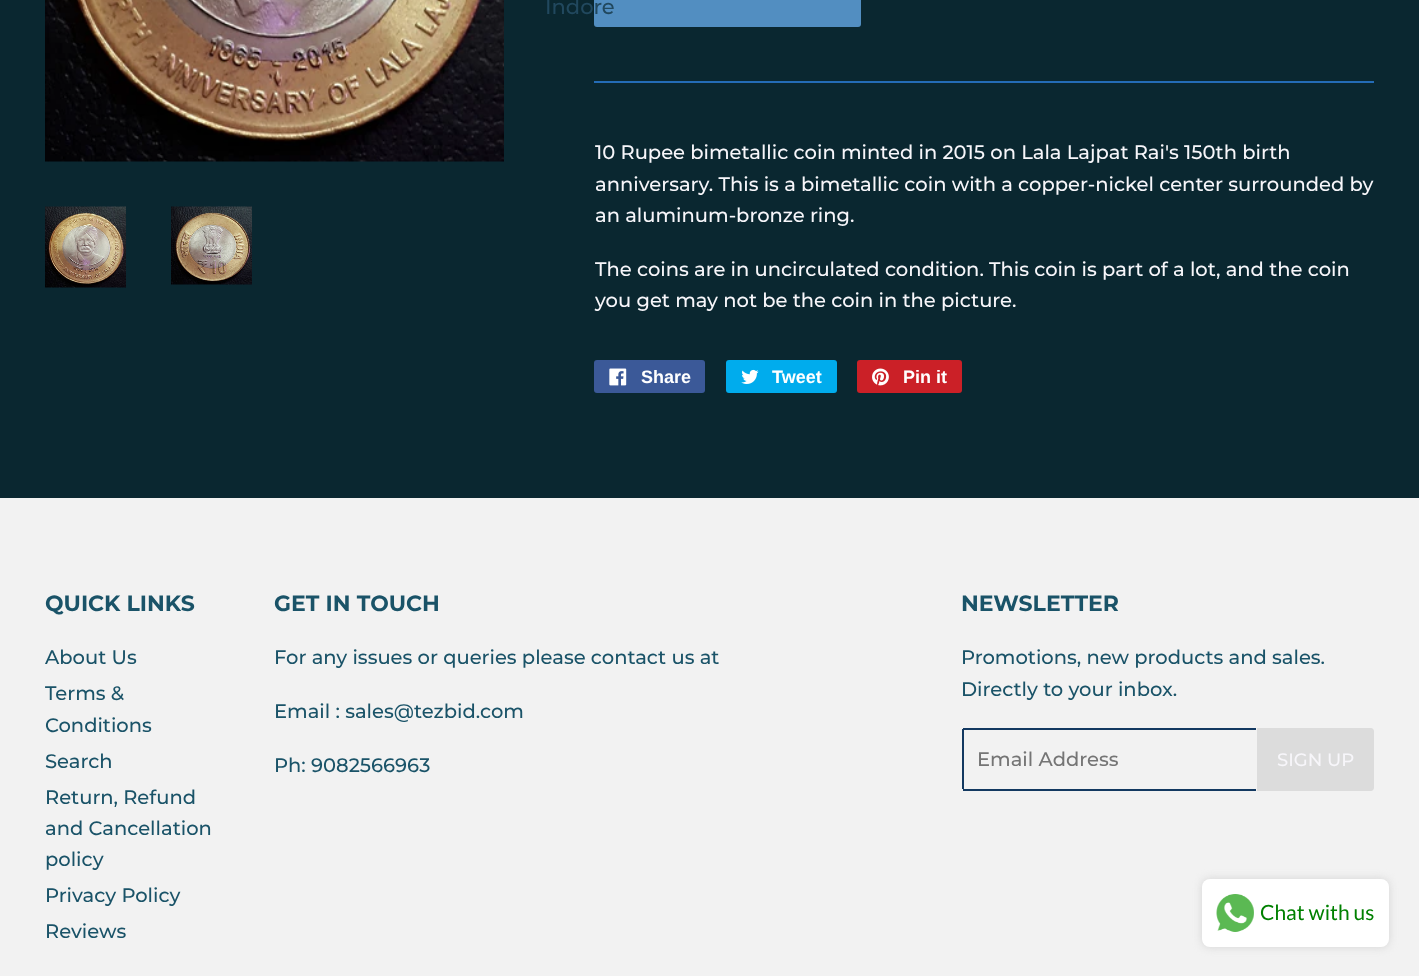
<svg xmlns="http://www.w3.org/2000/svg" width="1419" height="976">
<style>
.a{font:500 21px Montserrat;fill:#21485e}
.b{font:500 19.5px Montserrat;fill:#f7f6fa}
.c{font:bold 18px Liberation Sans;fill:#fff}
.d{font:bold 22px Montserrat;fill:#1a5368}
.e{font:500 19.5px Montserrat;fill:#1a5368}
.f{font:500 19.5px Montserrat;fill:#757575}
.g{font:500 18px Montserrat;fill:#f7f6fa}
.h{font:21px Lato;fill:#008000}
</style>
<rect width="100%" height="100%" fill="#0a2730"/>
<image href="1.png" x="45" y="0" width="459" height="162"/>
<image href="2.png" x="45" y="206" width="81" height="82"/>
<image href="3.png" x="171" y="206" width="81" height="79"/>
<rect fill="#528ec1" x="594" y="-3" width="267" height="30" rx="3"/>
<path fill="#246cb6" d="M594 81h780v2H594z"/>
<rect fill="#3b5998" x="594" y="360" width="111" height="33" rx="3"/>
<image href="4.png" x="609" y="368" width="18" height="18"/>
<rect fill="#00aced" x="726" y="360" width="111" height="33" rx="3"/>
<image href="5.png" x="741" y="369" width="18" height="15"/>
<rect fill="#cb2027" x="857" y="360" width="105" height="33" rx="3"/>
<image href="6.png" x="872" y="368" width="17" height="18"/>
<path fill="#f2f2f2" d="M0 498h1419v478H0z"/>
<path fill="#133961" d="M963 728h293v2H963z"/>
<path fill="#133961" d="M963 789h293v2H963z"/>
<path fill="#133961" d="M962 729h2v60H962z"/>
<path fill="#dcdcdc" d="M1257 728h114c1.5 0 3 1.5 3 3v57c0 1.5-1.5 3-3 3h-114z"/>
<rect fill="#d3d3d3" filter="blur(4px)" x="1202" y="879" width="187" height="68" rx="8"/>
<rect fill="#fff" x="1202" y="879" width="187" height="68" rx="8"/>
<image href="7.png" x="1216" y="894" width="38" height="38"/>
<text class="a" x="545" y="14">Indore</text>
<text class="b" x="595" y="159">10 Rupee bimetallic coin minted in 2015 on Lala Lajpat Rai's 150th birth</text>
<text class="b" x="595" y="191">anniversary. This is a bimetallic coin with a copper-nickel center surrounded by</text>
<text class="b" x="595" y="222">an aluminum-bronze ring.</text>
<text class="b" x="595" y="276">The coins are in uncirculated condition. This coin is part of a lot, and the coin</text>
<text class="b" x="595" y="307">you get may not be the coin in the picture.</text>
<text class="c" x="641" y="383">Share</text>
<text class="c" x="772" y="383">Tweet</text>
<text class="c" x="903" y="383">Pin it</text>
<text class="d" x="45" y="611">QUICK LINKS</text>
<text class="e" x="45" y="664">About Us</text>
<text class="e" x="45" y="700">Terms &amp;</text>
<text class="e" x="45" y="732">Conditions</text>
<text class="e" x="45" y="768">Search</text>
<text class="e" x="45" y="804">Return, Refund</text>
<text class="e" x="45" y="835">and Cancellation</text>
<text class="e" x="45" y="866">policy</text>
<text class="e" x="45" y="902">Privacy Policy</text>
<text class="e" x="45" y="938">Reviews</text>
<text class="d" x="274" y="611">GET IN TOUCH</text>
<text class="e" x="274" y="664">For any issues or queries please contact us at</text>
<text class="e" x="274" y="718">Email : sales@tezbid.com</text>
<text class="e" x="274" y="772">Ph: 9082566963</text>
<text class="d" x="961" y="611">NEWSLETTER</text>
<text class="e" x="961" y="664">Promotions, new products and sales.</text>
<text class="e" x="961" y="696">Directly to your inbox.</text>
<text class="f" x="977" y="766">Email Address</text>
<text class="g" x="1277" y="766">SIGN UP</text>
<text class="h" x="1260" y="920">Chat with us</text>
</svg>
